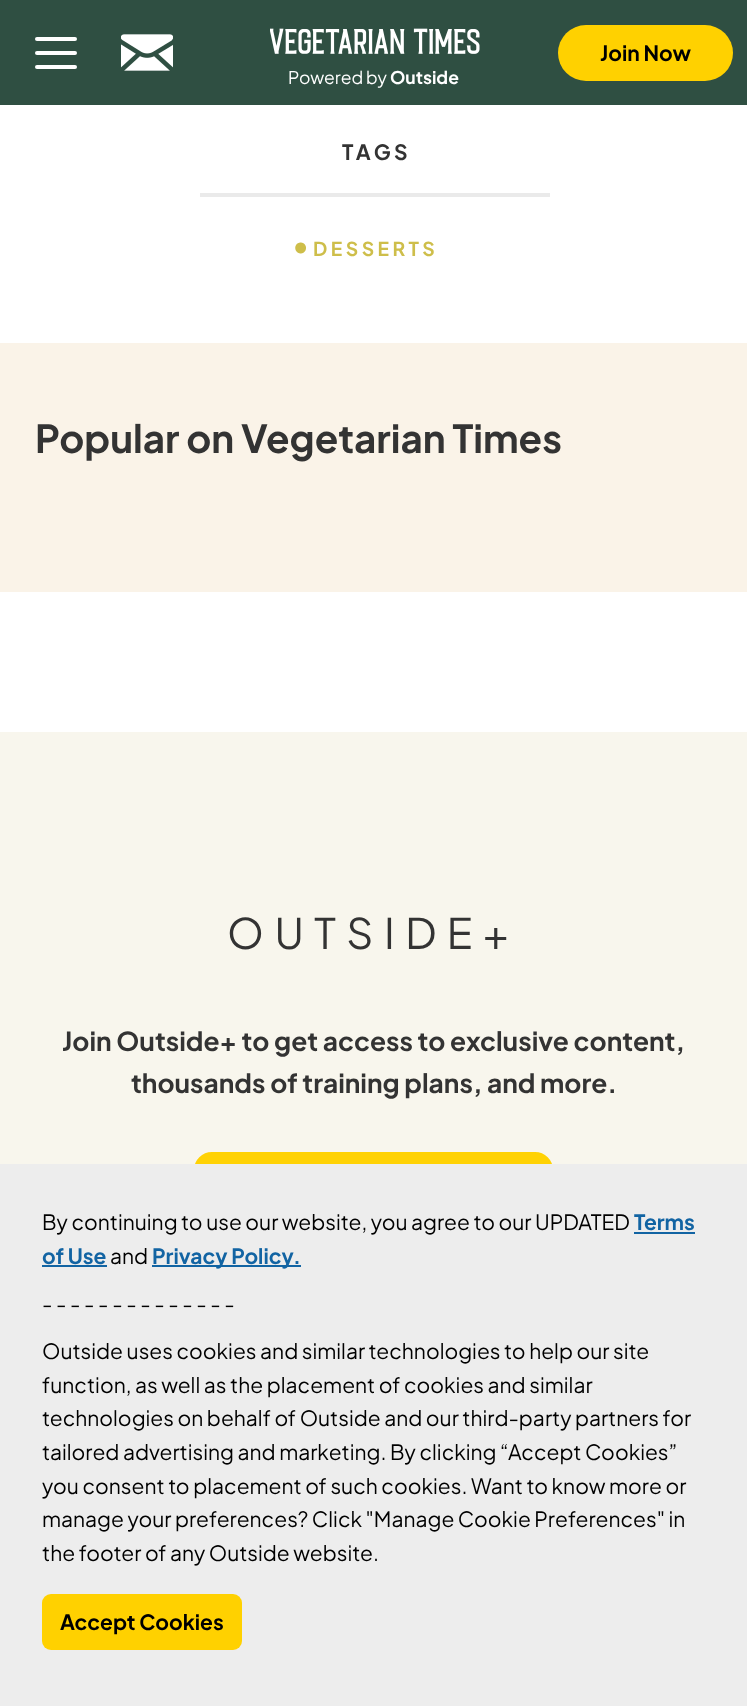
<svg xmlns="http://www.w3.org/2000/svg" width="747" height="1706">
<style>
.a{font:bold 21px Plus Jakarta Sans;fill:#000}
.b{font:17.5px Plus Jakarta Sans;fill:#fff}
.c{font:bold 17.5px Plus Jakarta Sans;fill:#fff}
.d{font:bold 21px Plus Jakarta Sans;letter-spacing:3.5px;fill:#333}
.e{font:bold 26.25px Plus Jakarta Sans;letter-spacing:3.5px;fill:#cebe4a}
.f{font:bold 19.25px Plus Jakarta Sans;letter-spacing:3.5px;fill:#cebe4a}
.g{font:bold 38.5px Plus Jakarta Sans;fill:#333}
.h{font:42px Plus Jakarta Sans;letter-spacing:10.5px;fill:#333}
.i{font:bold 26.25px Plus Jakarta Sans;fill:#333}
.j{font:21px Plus Jakarta Sans;fill:#000}
.k{font:bold 21px Plus Jakarta Sans;fill:#1264a3}
</style>
<rect width="100%" height="100%" fill="#fff"/>
<path fill="#2f4f42" d="M0 0h747v105H0z"/>
<rect fill="#fff" x="35" y="37" width="42" height="4" rx="2"/>
<rect fill="#fff" x="35" y="51" width="42" height="4" rx="2"/>
<rect fill="#fff" x="35" y="65" width="42" height="4" rx="2"/>
<image href="1.png" x="121" y="34" width="52" height="37"/>
<rect fill="#ffd100" x="558" y="25" width="175" height="56" rx="28"/>
<image href="2.png" x="270" y="28" width="210" height="26"/>
<path fill="#eaeaea" d="M200 193h350v4H200z"/>
<path fill="#faf3e8" d="M0 343h747v249H0z"/>
<path fill="#f8f6ed" d="M0 732h747v432H0z"/>
<rect fill="#ffd204" stroke="#ffd204" stroke-width="2" x="195" y="1153" width="357" height="89" rx="17"/>
<path fill="#ededed" d="M0 1164h747v542H0z"/>
<path fill="#1264a3" d="M634 1232h61v2H634z"/>
<path fill="#1264a3" d="M42 1265h65v2H42z"/>
<path fill="#1264a3" d="M152 1265h149v2H152z"/>
<rect fill="#ffd100" x="42" y="1594" width="200" height="56" rx="9"/>
<text class="a" x="600" y="61">Join Now</text>
<text class="b" x="288" y="84">Powered by</text>
<text class="c" x="390" y="84">Outside</text>
<text class="d" x="342" y="160">TAGS</text>
<text class="e" x="292" y="255">•</text>
<text class="f" x="313" y="256">DESSERTS</text>
<text class="g" x="35" y="453">Popular on Vegetarian Times</text>
<text class="h" x="227" y="949">OUTSIDE+</text>
<text class="i" x="62" y="1051">Join Outside+ to get access to exclusive content,</text>
<text class="i" x="131" y="1093">thousands of training plans, and more.</text>
<text class="j" x="42" y="1230">By continuing to use our website, you agree to our UPDATED</text>
<text class="k" x="634" y="1230">Terms</text>
<text class="k" x="42" y="1264">of Use</text>
<text class="j" x="110" y="1264">and</text>
<text class="k" x="152" y="1264">Privacy Policy.</text>
<text class="j" x="42" y="1312">- - - - - - - - - - - - - -</text>
<text class="j" x="42" y="1359">Outside uses cookies and similar technologies to help our site</text>
<text class="j" x="42" y="1393">function, as well as the placement of cookies and similar</text>
<text class="j" x="42" y="1426">technologies on behalf of Outside and our third-party partners for</text>
<text class="j" x="42" y="1460">tailored advertising and marketing. By clicking “Accept Cookies”</text>
<text class="j" x="42" y="1494">you consent to placement of such cookies. Want to know more or</text>
<text class="j" x="42" y="1527">manage your preferences? Click "Manage Cookie Preferences" in</text>
<text class="j" x="42" y="1561">the footer of any Outside website.</text>
<text class="a" x="60" y="1630">Accept Cookies</text>
</svg>
